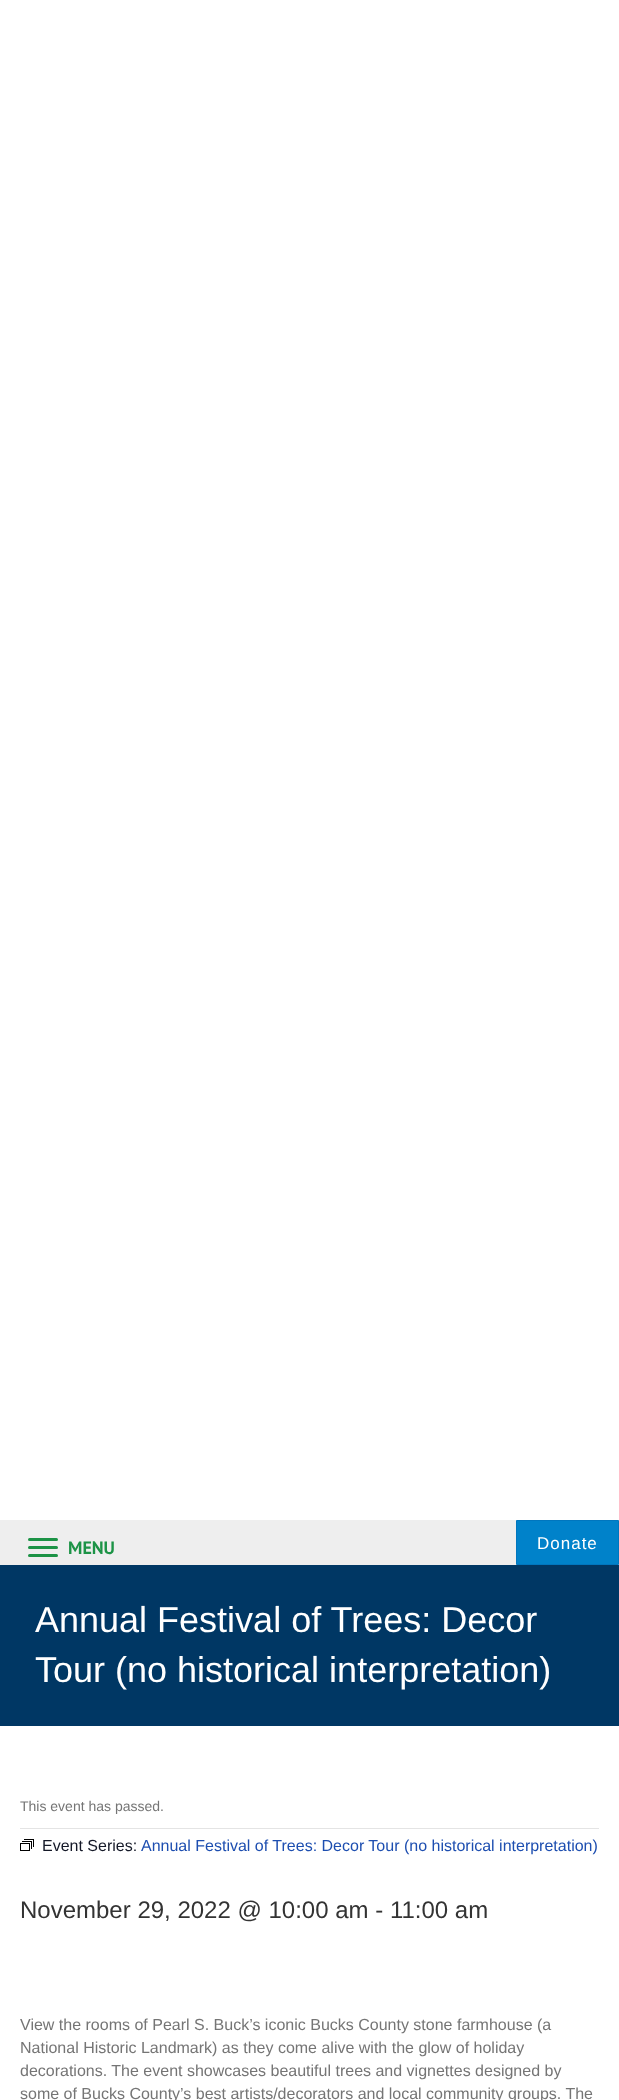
<svg xmlns="http://www.w3.org/2000/svg" width="619" height="2100">
<style>
.a{font:bold 18px PT Sans;fill:#1c9346}
.b{font:17px Liberation Sans;letter-spacing:1px;fill:#fff}
.c{font:36px Liberation Sans;fill:#fff}
.d{font:14px Liberation Sans;fill:#757575}
.e{font:16px Liberation Sans;fill:#141827}
.f{font:16px Liberation Sans;fill:#1d4eb0}
.g{font:24px Liberation Sans;fill:#333}
.h{font:16px Liberation Sans;fill:#757575}
</style>
<rect width="100%" height="100%" fill="#fff"/>
<path fill="#eee" d="M0 1520h516v45H0z"/>
<rect fill="#1c9346" x="28" y="1546" width="30" height="3" rx="1.5"/>
<rect fill="#1c9346" x="28" y="1538" width="30" height="3" rx="1.5"/>
<rect fill="#1c9346" x="28" y="1554" width="30" height="3" rx="1.5"/>
<path fill="#0082ca" stroke="#0076be" d="M516.5 1520.5h102v44H516.5z"/>
<path fill="#003764" d="M0 1565h619v161H0z"/>
<path fill="#e4e4e4" d="M20 1828h579v1H20z"/>
<image href="1.png" x="20" y="1839" width="14" height="12"/>
<text class="a" x="68" y="1554">MENU</text>
<text class="b" x="537" y="1549">Donate</text>
<text class="c" x="35" y="1632">Annual Festival of Trees: Decor</text>
<text class="c" x="35" y="1682">Tour (no historical interpretation)</text>
<text class="d" x="20" y="1811">This event has passed.</text>
<text class="e" x="42" y="1851">Event Series:</text>
<text class="f" x="141" y="1851">Annual Festival of Trees: Decor Tour (no historical interpretation)</text>
<text class="g" x="20" y="1918">November 29, 2022 @ 10:00 am - 11:00 am</text>
<text class="h" x="20" y="2030">View the rooms of Pearl S. Buck’s iconic Bucks County stone farmhouse (a</text>
<text class="h" x="20" y="2053">National Historic Landmark) as they come alive with the glow of holiday</text>
<text class="h" x="20" y="2076">decorations. The event showcases beautiful trees and vignettes designed by</text>
<text class="h" x="20" y="2099">some of Bucks County’s best artists/decorators and local community groups. The</text>
</svg>
